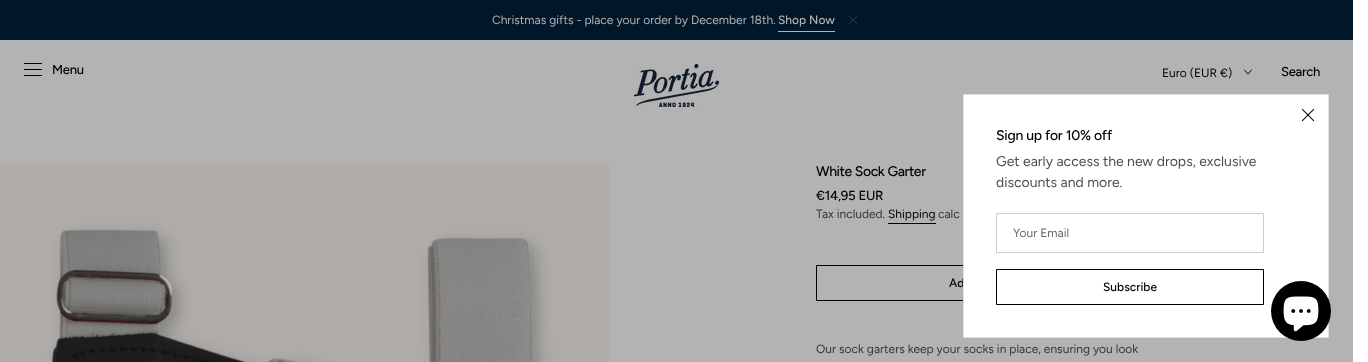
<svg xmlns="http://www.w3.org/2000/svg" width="1368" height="362">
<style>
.a{font:12px Figtree;fill:#b3b3b3}
.b{font:500 12px Figtree;fill:#b3b3b3}
.c{font:500 13px Figtree;letter-spacing:-0.25px;fill:#000}
.d{font:12px Figtree;fill:#000}
.e{font:500 14px Figtree;letter-spacing:-0.4px;fill:#000}
.f{font:500 13.25px Figtree;letter-spacing:-0.25px;fill:#000}
.g{font:12px Figtree;fill:#363636}
.h{font:500 12px Figtree;fill:#000}
.i{font:12px Figtree;fill:#666}
.j{font:14px Figtree;fill:#4d4d4d}
.k{font:500 14px Figtree;letter-spacing:-0.25px;fill:#000}
</style>
<rect width="100%" height="100%" fill="#fff"/>
<path fill="#b3b3b3" d="M0 40h1353v322H0z"/>
<path fill="#001729" d="M0 0h1353v40H0z"/>
<path fill="#b3b3b3" d="M778 31h57v1H778z"/>
<image href="1.png" x="848" y="15" width="10" height="10"/>
<path fill="#000" d="M24 63h18v1H24z"/>
<path fill="#000" d="M24 69h18v1H24z"/>
<path fill="#000" d="M24 75h18v1H24z"/>
<image href="2.png" x="634" y="64" width="85" height="43"/>
<path fill="none" stroke="#000" stroke-linecap="round" stroke-linejoin="round" d="M1251.5 70l-3.5 4l-3.5-4"/>
<image href="4.png" x="0" y="163" width="609" height="199"/>
<path fill="#000" d="M888 223h48v1H888z"/>
<path fill="none" stroke="#000" d="M816.5 265.5h329v35H816.5z"/>
<text class="a" x="492" y="24">Christmas gifts - place your order by December 18th.</text>
<text class="b" x="778" y="24">Shop Now</text>
<text class="c" x="52" y="74">Menu</text>
<text class="d" x="1162" y="77">Euro (EUR €)</text>
<text class="c" x="1281" y="76">Search</text>
<text class="e" x="816" y="176">White Sock Garter</text>
<text class="f" x="816" y="200">€14,95 EUR</text>
<text class="g" x="816" y="218">Tax included.</text>
<text class="d" x="888" y="218">Shipping</text>
<text class="g" x="938" y="218">calc</text>
<text class="h" x="949" y="287">Ad</text>
<path fill="#fff" stroke="#e1e1e1" d="M963.5 94.5h365v243H963.5z"/>
<image href="3.png" x="1301" y="108" width="14" height="14"/>
<path fill="none" stroke="#000" d="M996.5 269.5h267v35H996.5z"/>
<text class="h" x="1103" y="291">Subscribe</text>
<path fill="none" stroke="#ccc" d="M996.5 213.5h267v39H996.5z"/>
<text class="i" x="1013" y="237">Your Email</text>
<text class="j" x="996" y="187">discounts and more.</text>
<text class="j" x="996" y="166">Get early access the new drops, exclusive</text>
<text class="k" x="996" y="140">Sign up for 10% off</text>
<text class="g" x="816" y="353">Our sock garters keep your socks in place, ensuring you look</text>
<circle fill="#000" cx="1301" cy="311" r="30"/>
<image href="5.png" x="1283" y="296" width="36" height="36"/>
</svg>
